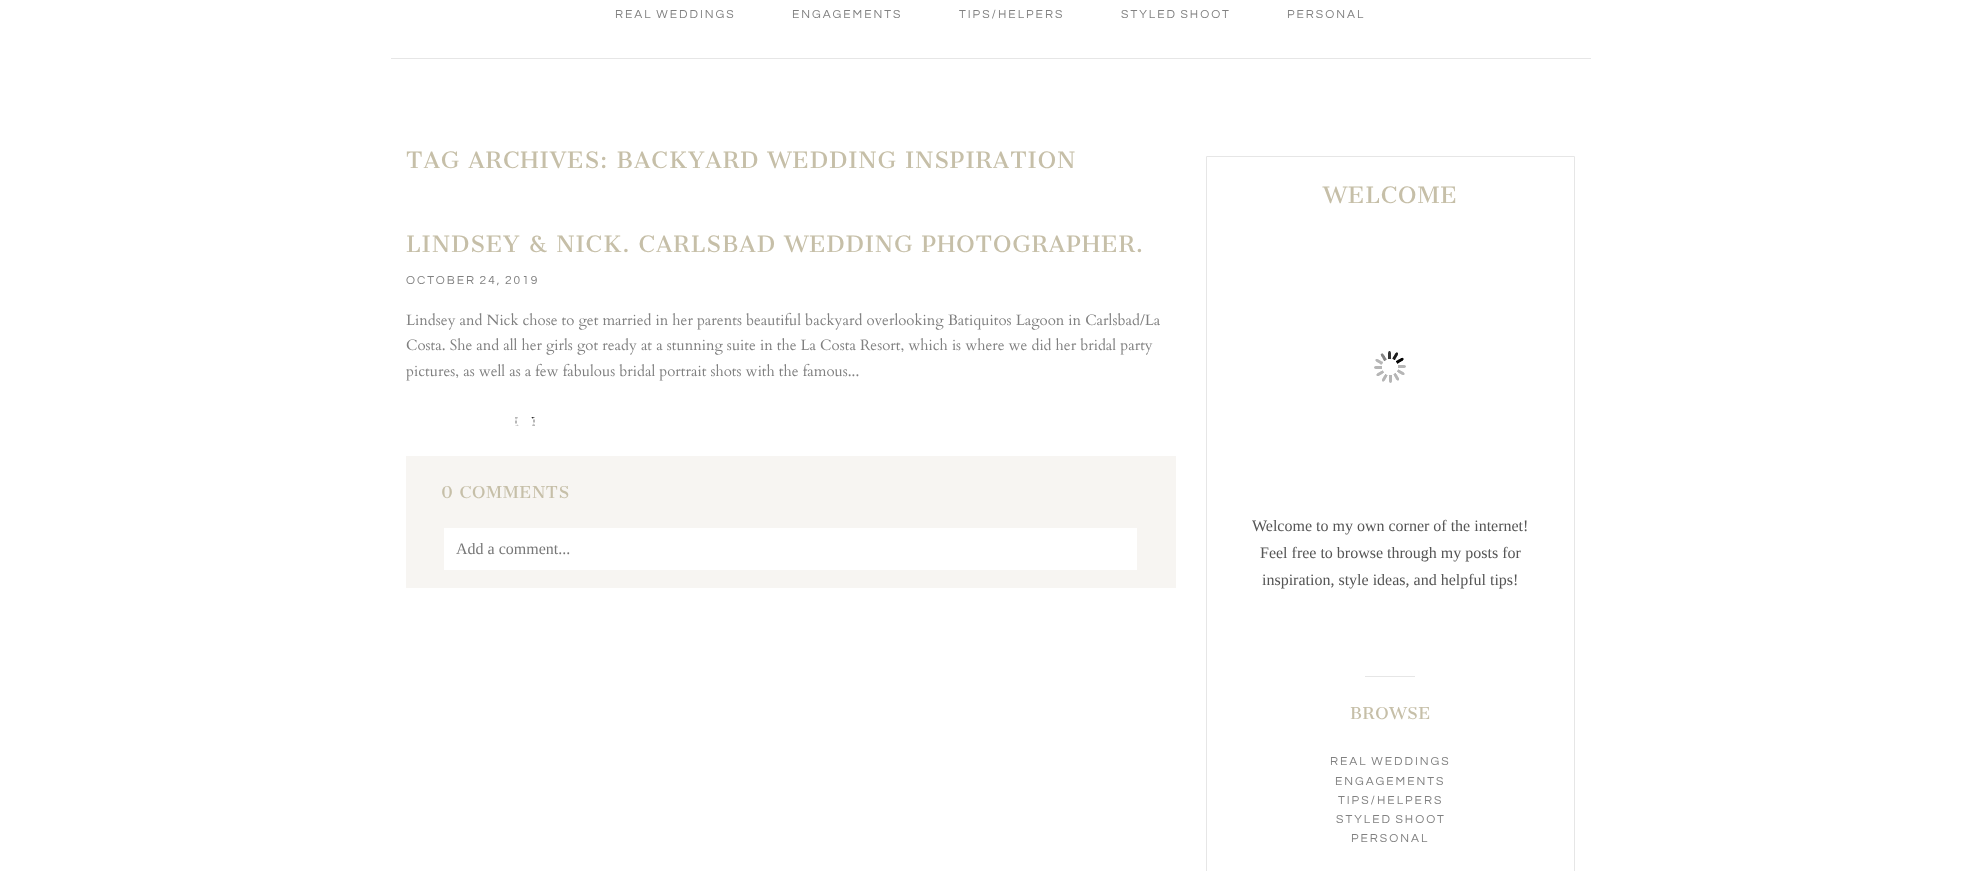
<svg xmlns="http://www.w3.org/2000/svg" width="1981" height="871">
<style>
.a{font:12px Questrial;letter-spacing:2px;fill:#808080}
.b{font:22px Cantata One;letter-spacing:0.9px;fill:#c6bfa8}
.c{font:15px Cardo;fill:#808080}
.d{font:16px Cantata One;letter-spacing:0.6px;fill:#c6bfa8}
.e{font:16px Liberation Serif;fill:#777}
.f{font:16px Liberation Serif;fill:#555}
</style>
<rect width="100%" height="100%" fill="#fff"/>
<path fill="#e6e6e6" d="M391 58h1200v1H391z"/>
<image href="1.png" x="515" y="417" width="20" height="9"/>
<path fill="#f7f5f2" d="M406 456h770v132H406z"/>
<path fill="#fff" d="M444 528h693v42H444z"/>
<path fill="none" stroke="#e6e6e6" d="M1206.5 156.5h368v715H1206.5z"/>
<image href="2.png" x="1374" y="351" width="32" height="32"/>
<path fill="#e6e6e6" d="M1365 676h50v1H1365z"/>
<text class="a" x="615" y="18" word-spacing="-1">REAL WEDDINGS</text>
<text class="a" x="792" y="18">ENGAGEMENTS</text>
<text class="a" x="959" y="18">TIPS/HELPERS</text>
<text class="a" x="1121" y="18" word-spacing="-1">STYLED SHOOT</text>
<text class="a" x="1287" y="18">PERSONAL</text>
<text class="b" x="406" y="168">TAG ARCHIVES: BACKYARD WEDDING INSPIRATION</text>
<text class="b" x="406" y="252">LINDSEY &amp; NICK. CARLSBAD WEDDING PHOTOGRAPHER.</text>
<text class="a" x="406" y="284" word-spacing="-1">OCTOBER 24, 2019</text>
<text class="c" x="406" y="325">Lindsey and Nick chose to get married in her parents beautiful backyard overlooking Batiquitos Lagoon in Carlsbad/La</text>
<text class="c" x="406" y="350">Costa. She and all her girls got ready at a stunning suite in the La Costa Resort, which is where we did her bridal party</text>
<text class="c" x="406" y="376">pictures, as well as a few fabulous bridal portrait shots with the famous...</text>
<text class="d" x="441" y="498">0 COMMENTS</text>
<text class="e" x="456" y="554">Add a comment...</text>
<text class="b" x="1323" y="203">WELCOME</text>
<text class="f" x="1252" y="531">Welcome to my own corner of the internet!</text>
<text class="f" x="1260" y="558">Feel free to browse through my posts for</text>
<text class="f" x="1262" y="585">inspiration, style ideas, and helpful tips!</text>
<text class="d" x="1350" y="719">BROWSE</text>
<text class="a" x="1330" y="765" word-spacing="-1">REAL WEDDINGS</text>
<text class="a" x="1335" y="785">ENGAGEMENTS</text>
<text class="a" x="1338" y="804">TIPS/HELPERS</text>
<text class="a" x="1336" y="823" word-spacing="-1">STYLED SHOOT</text>
<text class="a" x="1351" y="842">PERSONAL</text>
</svg>
